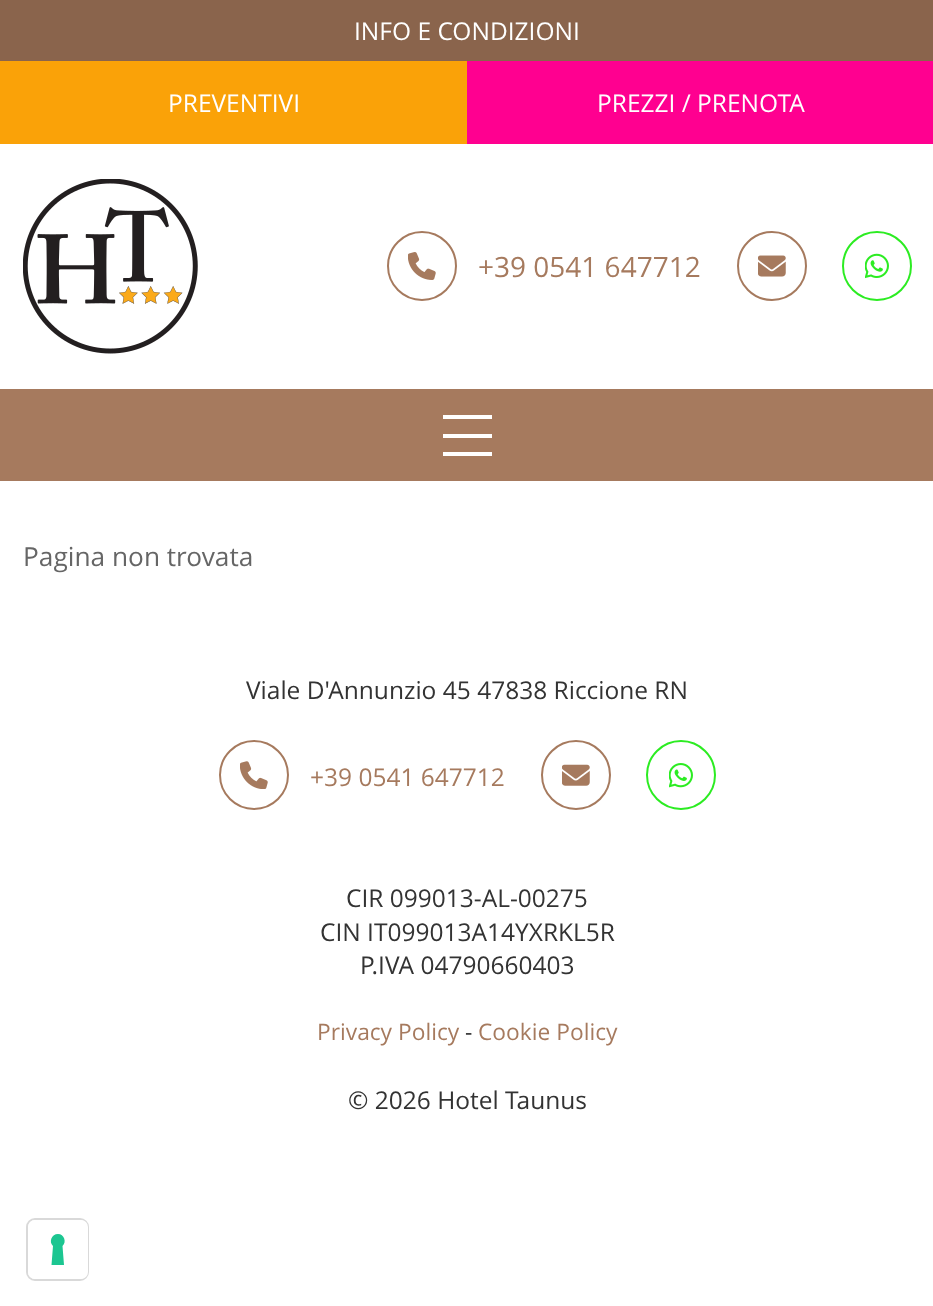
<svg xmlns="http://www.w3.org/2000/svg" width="933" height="1306">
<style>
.a{font:24.5px Open Sans;fill:#fff}
.b{font:28px Open Sans;fill:#a67a5e}
.c{font:26.25px Open Sans;fill:#666}
.d{font:24.5px Open Sans;fill:#333}
.e{font:24.5px Open Sans;fill:#a67a5e}
.f{font:22.75px Open Sans;fill:#a67a5e}
.g{font:22.75px Open Sans;fill:#333}
</style>
<rect width="100%" height="100%" fill="#fff"/>
<path fill="#8a644c" d="M0 0h933v61H0z"/>
<path fill="#faa208" d="M0 61h467v83H0z"/>
<path fill="#ff0090" d="M467 61h466v83H467z"/>
<image href="1.png" x="23" y="179" width="175" height="175"/>
<circle fill="none" stroke="#a67a5e" stroke-width="2" cx="422" cy="266" r="34"/>
<image href="2.png" x="408" y="252" width="28" height="28"/>
<circle fill="none" stroke="#a67a5e" stroke-width="2" cx="772" cy="266" r="34"/>
<image href="3.png" x="758" y="255" width="28" height="22"/>
<circle fill="none" stroke="#2cec22" stroke-width="2" cx="877" cy="266" r="34"/>
<image href="4.png" x="865" y="253" width="24" height="26"/>
<path fill="#a67a5e" d="M0 389h933v92H0z"/>
<path fill="#fff" d="M443 415h49v4H443z"/>
<path fill="#fff" d="M443 434h49v4H443z"/>
<path fill="#fff" d="M443 452h49v4H443z"/>
<circle fill="none" stroke="#a67a5e" stroke-width="2" cx="254" cy="775" r="34"/>
<image href="5.png" x="240" y="761" width="28" height="28"/>
<circle fill="none" stroke="#a67a5e" stroke-width="2" cx="576" cy="775" r="34"/>
<image href="6.png" x="562" y="764" width="28" height="22"/>
<circle fill="none" stroke="#2cec22" stroke-width="2" cx="681" cy="775" r="34"/>
<image href="7.png" x="669" y="763" width="24" height="25"/>
<rect fill="none" stroke="#d9d9d9" stroke-width="2" x="27" y="1219" width="61" height="61" rx="8"/>
<rect fill="#fff" x="28" y="1220" width="60" height="59" rx="7"/>
<path fill="#1cc691" fill-rule="evenodd" d="M58 1234c6 0 9 8 4.5 12l1.5 19h-12.5l1.5-19c-4.5-4-1.5-12 5-12z"/>
<text class="a" x="354" y="40">INFO E CONDIZIONI</text>
<text class="a" x="168" y="112">PREVENTIVI</text>
<text class="a" x="597" y="112">PREZZI / PRENOTA</text>
<text class="b" x="478" y="277">+39 0541 647712</text>
<text class="c" x="23" y="566">Pagina non trovata</text>
<text class="d" x="246" y="699">Viale D'Annunzio 45 47838 Riccione RN</text>
<text class="e" x="310" y="786">+39 0541 647712</text>
<text class="d" x="346" y="907">CIR 099013-AL-00275</text>
<text class="d" x="320" y="941">CIN IT099013A14YXRKL5R</text>
<text class="d" x="360" y="974">P.IVA 04790660403</text>
<text class="f" x="317" y="1040">Privacy Policy</text>
<text class="g" x="465" y="1040">-</text>
<text class="f" x="478" y="1040">Cookie Policy</text>
<text class="d" x="348" y="1109">© 2026 Hotel Taunus</text>
</svg>
